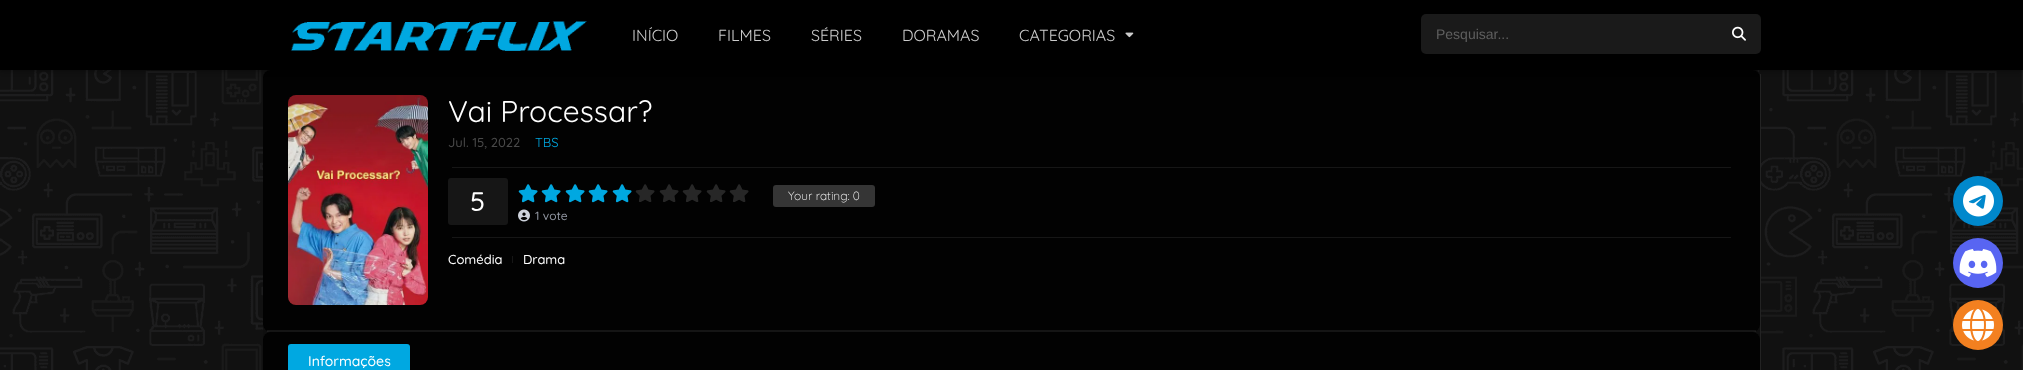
<svg xmlns="http://www.w3.org/2000/svg" width="2023" height="370">
<style>
.a{font:16px Quicksand;fill:#ccc}
.b{font:14px Liberation Sans;fill:#5f5f5f}
.c{font:30px Quicksand;fill:#fff}
.d{font:500 13px Quicksand;fill:#494949}
.e{font:13px Quicksand;fill:#00a8e1}
.f{font:300 12px Quicksand;fill:#fff}
.g{font:500 27px Quicksand;fill:#fff}
.h{font:500 12px Quicksand;fill:#9297a2}
.i{font:500 13px Quicksand;fill:#fff}
.j{font:500 14px Quicksand;fill:#fff}
</style>
<rect width="100%" height="100%" fill="#fff"/>
<image href="1.png" x="0" y="70" width="2023" height="300"/>
<rect fill="#0f0f0fd9" x="263" y="70" width="1498" height="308" rx="8"/>
<path fill="#232323" d="M1760 74h1v296H1760z"/>
<rect fill="#020202" x="263" y="70" width="1497" height="262" rx="8"/>
<path fill="#00000066" filter="blur(2.5px)" d="M0 1h2023v70H0z"/>
<path fill="#000" d="M0 0h2023v70H0z"/>
<image href="2.png" x="290" y="21" width="297" height="30"/>
<image href="3.png" x="1125" y="32" width="9" height="6"/>
<rect fill="#1a1a1a" x="1421" y="14" width="340" height="40" rx="5"/>
<image href="4.png" x="1732" y="26" width="14" height="15"/>
<path fill="#ffffff14" d="M267 330h1489v2H267z"/>
<image href="5.png" x="288" y="95" width="140" height="210"/>
<path fill="#161616" d="M452 167h1279v1H452z"/>
<path fill="#161616" d="M452 237h1279v1H452z"/>
<image href="6.png" x="518" y="184" width="20" height="19"/>
<image href="6.png" x="541" y="184" width="20" height="19"/>
<image href="6.png" x="565" y="184" width="20" height="19"/>
<image href="6.png" x="588" y="184" width="20" height="19"/>
<image href="6.png" x="612" y="184" width="20" height="19"/>
<image href="7.png" x="635" y="184" width="20" height="18"/>
<image href="7.png" x="659" y="184" width="20" height="18"/>
<image href="7.png" x="682" y="184" width="20" height="18"/>
<image href="7.png" x="706" y="184" width="20" height="18"/>
<image href="7.png" x="729" y="184" width="20" height="18"/>
<rect fill="#353535" x="773" y="185" width="102" height="22" rx="3"/>
<rect fill="#161616" x="448" y="178" width="60" height="47" rx="3"/>
<image href="8.png" x="518" y="209" width="12" height="13"/>
<path fill="#161616" d="M512 256h1v7H512z"/>
<rect fill="#020202" x="263" y="332" width="1497" height="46" rx="8"/>
<rect fill="#00a8e1" x="288" y="344" width="122" height="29" rx="3"/>
<circle fill="#08c" cx="1978" cy="201" r="25"/>
<image href="9.png" x="1963" y="185" width="31" height="32"/>
<circle fill="#5865f2" cx="1978" cy="263" r="25"/>
<image href="10.png" x="1959" y="249" width="38" height="28"/>
<circle fill="#f38020" cx="1978" cy="325" r="25"/>
<image href="11.png" x="1962" y="309" width="32" height="32"/>
<text class="a" x="632" y="41">INÍCIO</text>
<text class="a" x="718" y="41">FILMES</text>
<text class="a" x="811" y="41">SÉRIES</text>
<text class="a" x="902" y="41">DORAMAS</text>
<text class="a" x="1019" y="41">CATEGORIAS</text>
<text class="b" x="1436" y="39">Pesquisar...</text>
<text class="c" x="448" y="122">Vai Processar?</text>
<text class="d" x="448" y="147">Jul. 15, 2022</text>
<text class="e" x="535" y="147">TBS</text>
<text class="f" x="788" y="200">Your rating: 0</text>
<text class="g" x="470" y="211">5</text>
<text class="h" x="535" y="220">1 vote</text>
<text class="i" x="448" y="264">Comédia</text>
<text class="i" x="523" y="264">Drama</text>
<text class="j" x="308" y="366">Informações</text>
</svg>
